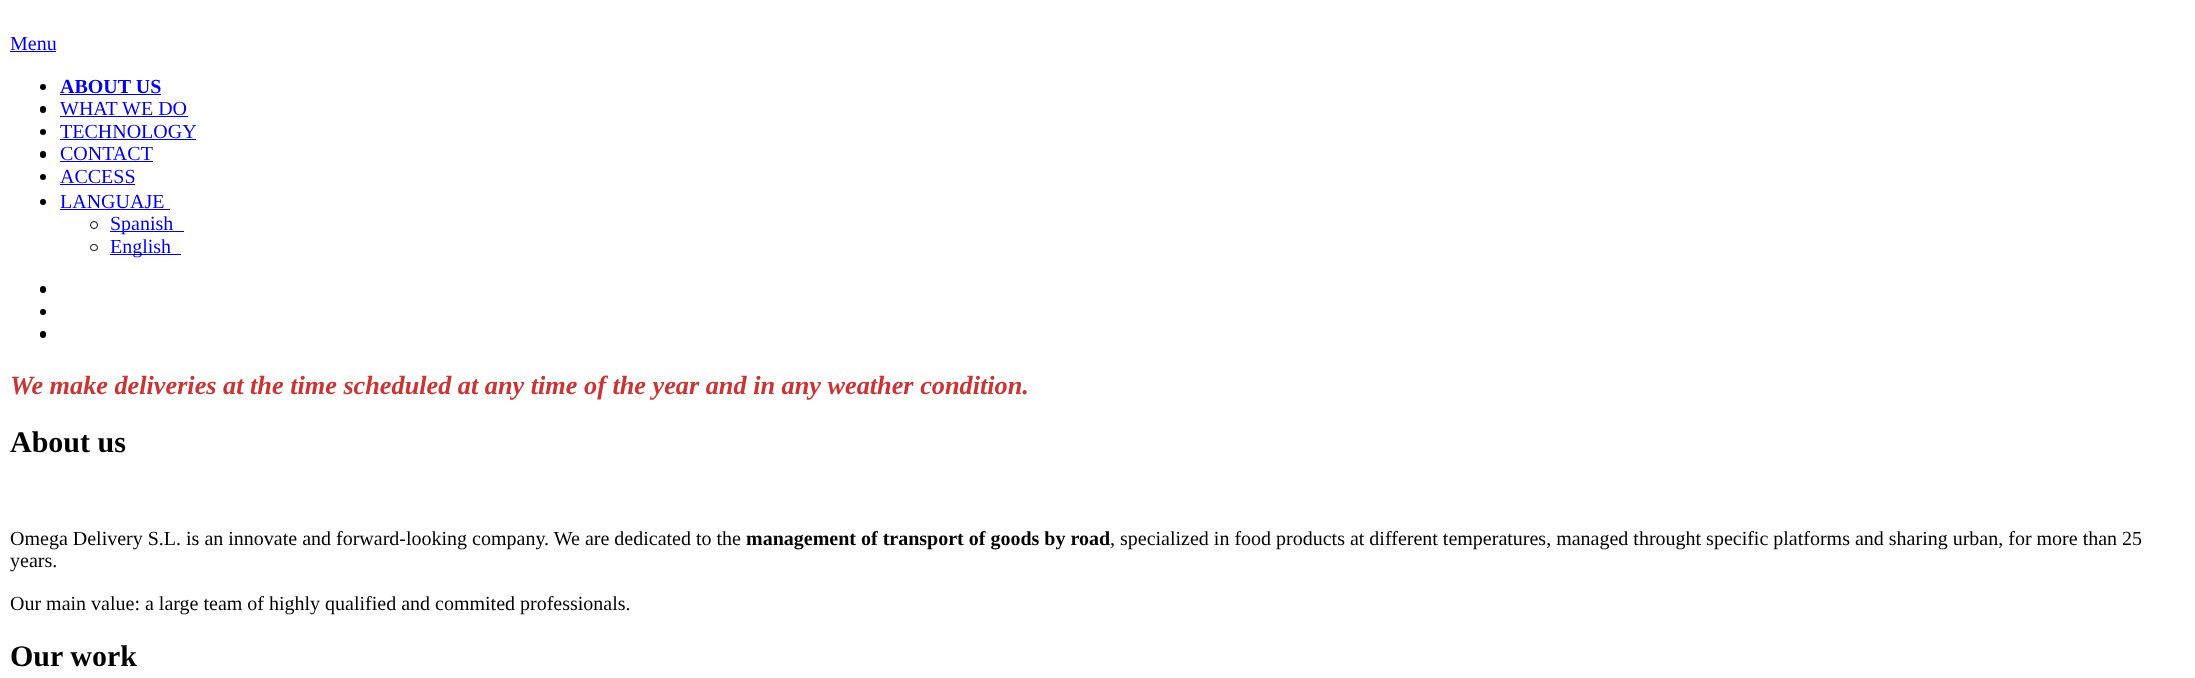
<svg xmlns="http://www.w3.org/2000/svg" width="2195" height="678">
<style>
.a{font:20px Liberation Serif;fill:#00e}
.b{font:bold 20px Liberation Serif;fill:#00e}
.c{font:italic bold 26.25px Liberation Serif;fill:#c33}
.d{font:bold 30px Liberation Serif;fill:#000}
.e{font:20px Liberation Serif;fill:#000}
.f{font:bold 20px Liberation Serif;fill:#000}
</style>
<rect width="100%" height="100%" fill="#fff"/>
<path fill="#00e" d="M10 51h46v1H10z"/>
<circle fill="#000" cx="43" cy="87" r="3"/>
<path fill="#00e" d="M60 94h101v1H60z"/>
<rect fill="#000" x="40" y="106" width="6" height="7" rx="3"/>
<path fill="#00e" d="M60 116h128v1H60z"/>
<circle fill="#000" cx="43" cy="132" r="3"/>
<path fill="#00e" d="M60 139h136v1H60z"/>
<rect fill="#000" x="40" y="151" width="6" height="7" rx="3"/>
<path fill="#00e" d="M60 161h93v1H60z"/>
<circle fill="#000" cx="43" cy="177" r="3"/>
<path fill="#00e" d="M60 184h75v1H60z"/>
<circle fill="#000" cx="43" cy="202" r="3"/>
<path fill="#00e" d="M60 209h110v1H60z"/>
<circle fill="none" stroke="#000" cx="94" cy="225" r="3.5"/>
<path fill="#00e" d="M110 231h74v1H110z"/>
<rect fill="none" stroke="#000" x="90.5" y="244.5" width="7" height="6" rx="3"/>
<path fill="#00e" d="M110 254h71v1H110z"/>
<rect fill="#000" x="40" y="286" width="6" height="7" rx="3"/>
<circle fill="#000" cx="43" cy="312" r="3"/>
<rect fill="#000" x="40" y="331" width="6" height="7" rx="3"/>
<text class="a" x="10" y="50">Menu</text>
<text class="b" x="60" y="93">ABOUT US</text>
<text class="a" x="60" y="115">WHAT WE DO</text>
<text class="a" x="60" y="138">TECHNOLOGY</text>
<text class="a" x="60" y="160">CONTACT</text>
<text class="a" x="60" y="183">ACCESS</text>
<text class="a" x="60" y="208">LANGUAJE</text>
<text class="a" x="110" y="230">Spanish</text>
<text class="a" x="110" y="253">English</text>
<text class="c" x="10" y="394">We make deliveries at the time scheduled at any time of the year and in any weather condition.</text>
<text class="d" x="10" y="452">About us</text>
<text class="e" x="10" y="545">Omega Delivery S.L. is an innovate and forward-looking company. We are dedicated to the</text>
<text class="f" x="746" y="545">management of transport of goods by road</text>
<text class="e" x="1110" y="545">, specialized in food products at different temperatures, managed throught specific platforms and sharing urban, for more than 25</text>
<text class="e" x="10" y="567">years.</text>
<text class="e" x="10" y="610">Our main value: a large team of highly qualified and commited professionals.</text>
<text class="d" x="10" y="666">Our work</text>
</svg>
